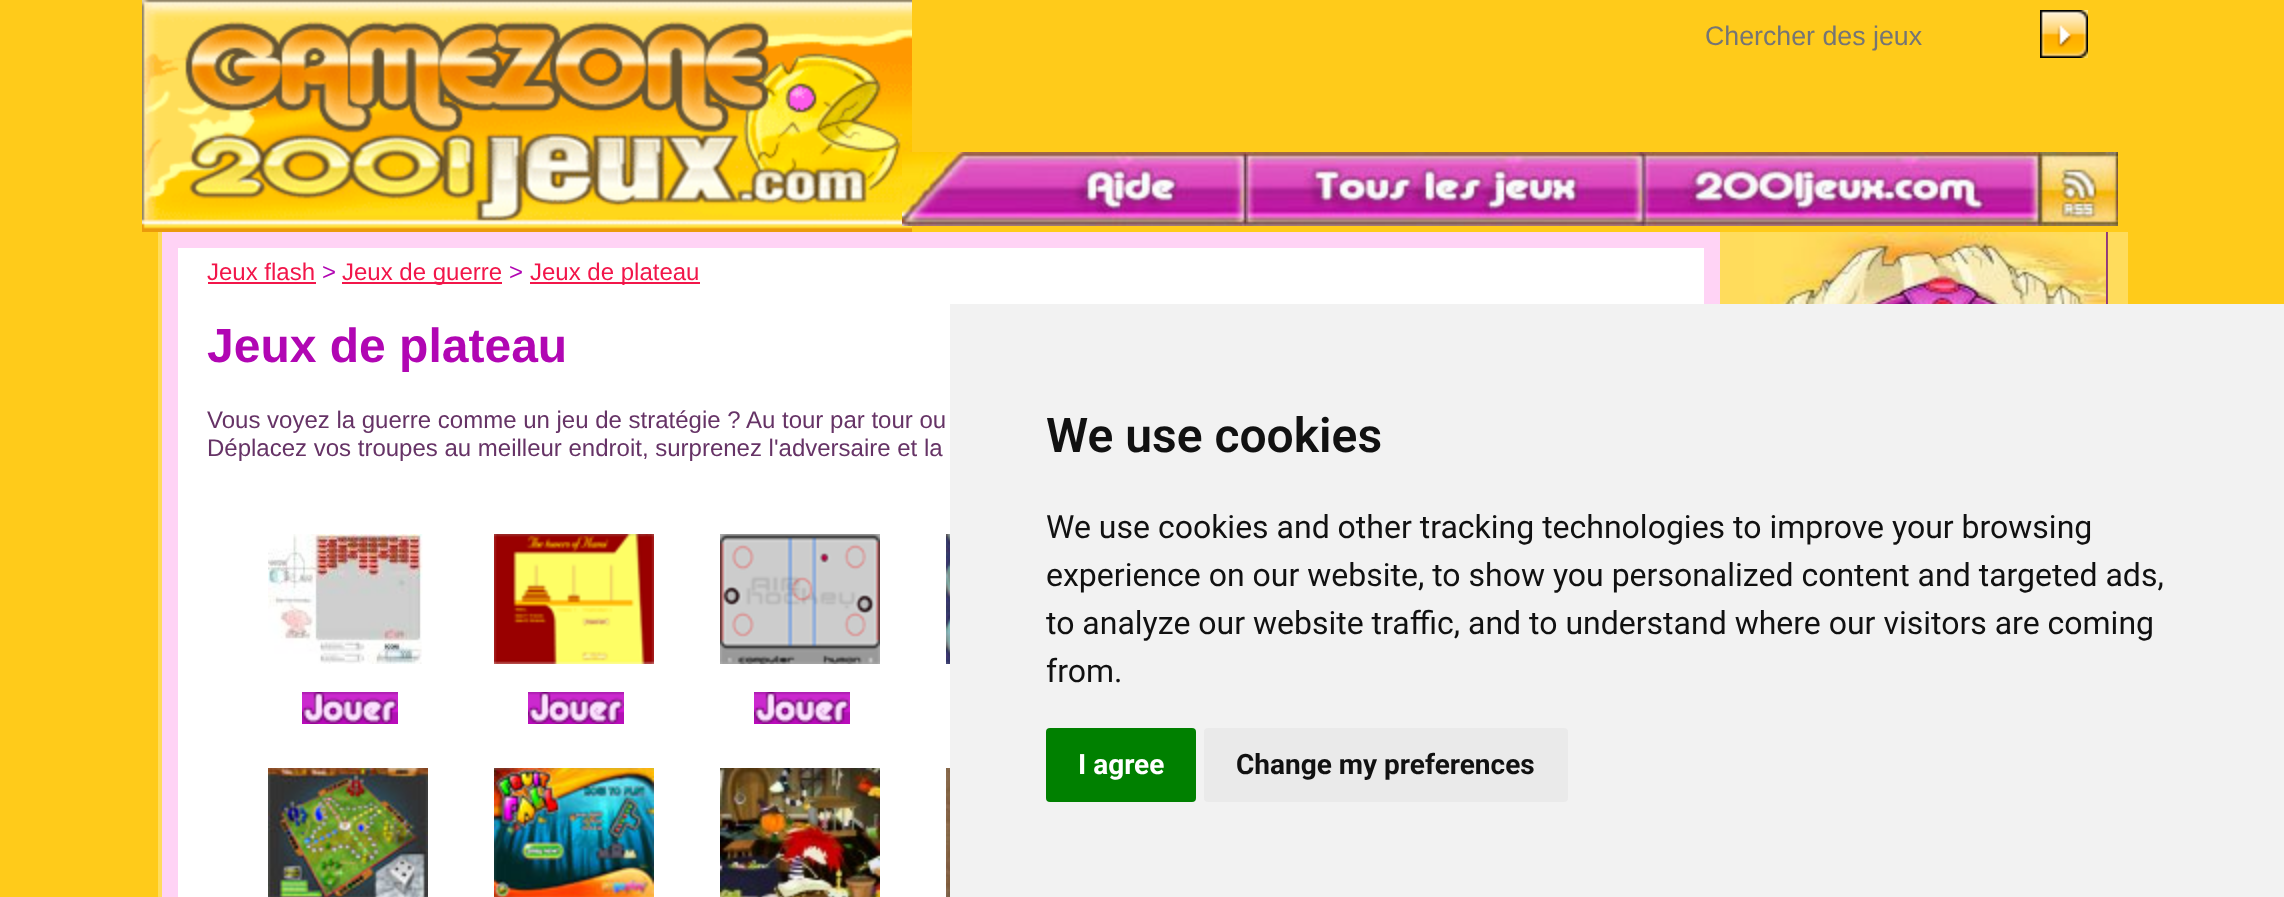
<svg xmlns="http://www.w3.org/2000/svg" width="2284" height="897">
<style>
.a{font:26.75px Liberation Sans;fill:#757575}
.b{font:24px Liberation Sans;fill:#f2164a}
.c{font:24px Liberation Sans;fill:#b106b3}
.d{font:bold 48px Liberation Sans;fill:#b106b3}
.e{font:24px Liberation Sans;fill:#636}
.f{font:600 48px Roboto;fill:#111}
.g{font:32px Roboto;fill:#111}
.h{font:bold 28px Roboto;fill:#fff}
.i{font:bold 28px Roboto;fill:#111}
</style>
<rect width="100%" height="100%" fill="#ffcb1a"/>
<image href="1.png" x="142" y="0" width="770" height="232"/>
<image href="2.png" x="2040" y="10" width="48" height="48"/>
<image href="3.png" x="902" y="152" width="344" height="74"/>
<image href="4.png" x="1246" y="152" width="398" height="74"/>
<image href="5.png" x="1644" y="152" width="396" height="74"/>
<image href="6.png" x="2040" y="152" width="78" height="74"/>
<path fill="#ffdc5c" d="M158 232h1970v665H158z"/>
<path fill="#fff" stroke="#ffd3f5" stroke-width="16" d="M170 240h1542v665H170z"/>
<path fill="#f2164a" d="M208 282h108v2H208z"/>
<path fill="#f2164a" d="M342 282h160v2H342z"/>
<path fill="#f2164a" d="M530 282h170v2H530z"/>
<image href="7.png" x="268" y="534" width="155" height="130"/>
<image href="8.png" x="302" y="692" width="96" height="32"/>
<image href="9.png" x="494" y="534" width="160" height="130"/>
<image href="8.png" x="528" y="692" width="96" height="32"/>
<image href="10.png" x="720" y="534" width="160" height="130"/>
<image href="8.png" x="754" y="692" width="96" height="32"/>
<image href="11.png" x="946" y="534" width="4" height="130"/>
<image href="12.png" x="268" y="768" width="160" height="129"/>
<image href="13.png" x="494" y="768" width="160" height="129"/>
<image href="14.png" x="720" y="768" width="160" height="129"/>
<image href="15.png" x="946" y="768" width="4" height="129"/>
<image href="16.png" x="2106" y="232" width="2" height="72"/>
<image href="17.png" x="1754" y="232" width="352" height="72"/>
<path fill="#f2f2f2" d="M950 304h1334v593H950z"/>
<rect fill="#008000" x="1046" y="728" width="150" height="74" rx="4"/>
<rect fill="#eaeaea" x="1204" y="728" width="364" height="74" rx="4"/>
<text class="a" x="1705" y="45">Chercher des jeux</text>
<text class="b" x="207" y="280">Jeux flash</text>
<text class="c" x="322" y="280">&gt;</text>
<text class="b" x="342" y="280">Jeux de guerre</text>
<text class="c" x="509" y="280">&gt;</text>
<text class="b" x="530" y="280">Jeux de plateau</text>
<text class="d" x="207" y="362">Jeux de plateau</text>
<text class="e" x="207" y="428">Vous voyez la guerre comme un jeu de stratégie ? Au tour par tour ou</text>
<text class="e" x="207" y="456">Déplacez vos troupes au meilleur endroit, surprenez l'adversaire et la</text>
<text class="f" x="1046" y="452">We use cookies</text>
<text class="g" x="1046" y="538">We use cookies and other tracking technologies to improve your browsing</text>
<text class="g" x="1046" y="586">experience on our website, to show you personalized content and targeted ads,</text>
<text class="g" x="1046" y="634">to analyze our website traffic, and to understand where our visitors are coming</text>
<text class="g" x="1046" y="682">from.</text>
<text class="h" x="1078" y="774">I agree</text>
<text class="i" x="1236" y="774">Change my preferences</text>
</svg>
